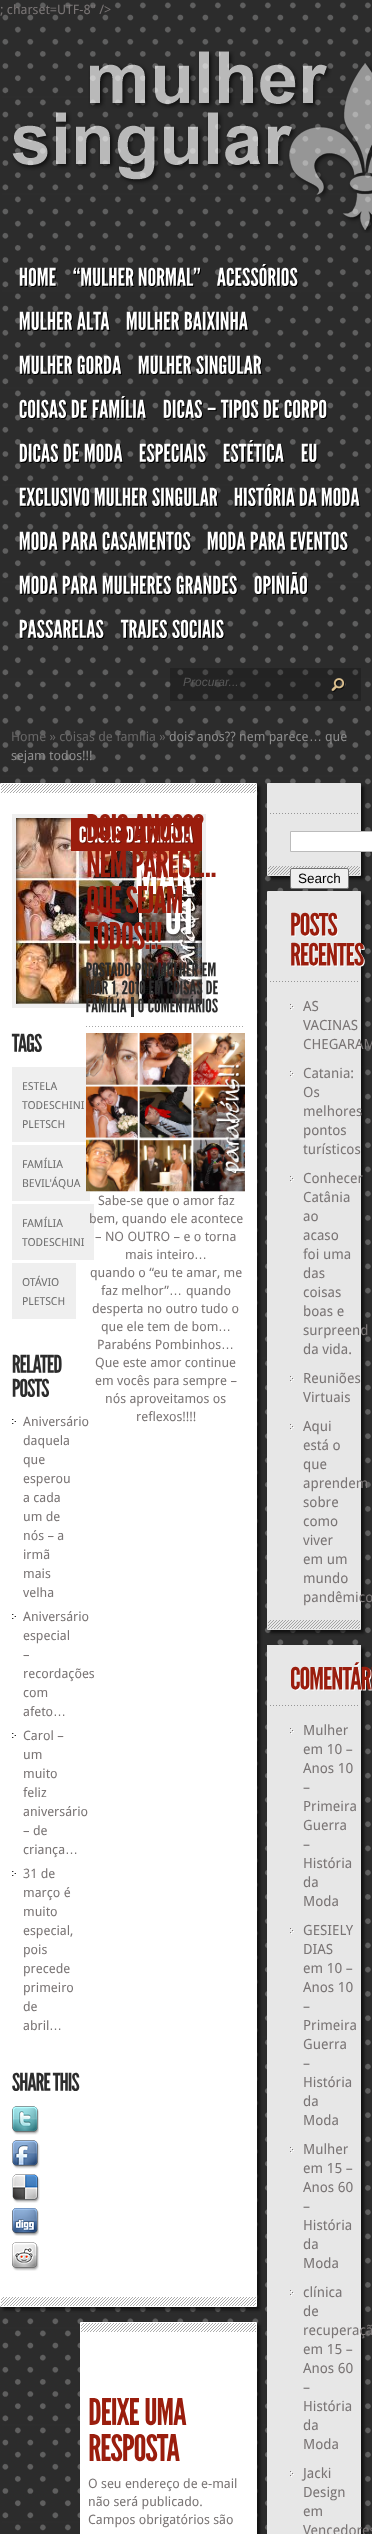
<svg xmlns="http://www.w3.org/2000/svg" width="372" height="2534">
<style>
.a{font:13px Droid Sans;fill:#7a7575}
.b{font:italic 12px Liberation Sans;fill:#595959}
.c{font:13px Droid Sans;fill:#686767}
.d{font:13px Droid Sans;fill:#8e8e8e}
.e{font:13px Liberation Sans;fill:#8e8e8e}
.f{font:11px Droid Sans;fill:#6e6e6e}
.g{font:13px Liberation Sans;fill:#7a7575}
.h{font:13.5px Liberation Sans;fill:#000}
.i{font:14px Droid Sans;fill:#7a7575}
</style>
<rect width="100%" height="100%" fill="#2c2c2c"/>
<image href="1.png" x="2" y="2" width="369" height="2529"/>
<image href="2.png" x="12" y="51" width="360" height="182"/>
<image href="3.png" x="19" y="267" width="38" height="20"/>
<image href="4.png" x="73" y="267" width="62" height="20"/>
<image href="5.png" x="138" y="267" width="63" height="20"/>
<image href="6.png" x="217" y="264" width="82" height="23"/>
<image href="7.png" x="19" y="311" width="54" height="20"/>
<image href="8.png" x="77" y="311" width="34" height="20"/>
<image href="9.png" x="126" y="311" width="54" height="20"/>
<image href="10.png" x="184" y="311" width="65" height="20"/>
<image href="11.png" x="19" y="355" width="54" height="20"/>
<image href="12.png" x="77" y="355" width="45" height="20"/>
<image href="13.png" x="138" y="355" width="54" height="20"/>
<image href="14.png" x="196" y="355" width="67" height="20"/>
<image href="15.png" x="19" y="399" width="48" height="20"/>
<image href="16.png" x="71" y="399" width="17" height="20"/>
<image href="17.png" x="92" y="396" width="55" height="23"/>
<image href="18.png" x="163" y="399" width="40" height="20"/>
<image href="19.png" x="207" y="407" width="10" height="5"/>
<image href="20.png" x="220" y="399" width="40" height="20"/>
<image href="21.png" x="263" y="399" width="17" height="20"/>
<image href="22.png" x="284" y="399" width="44" height="20"/>
<image href="23.png" x="19" y="443" width="40" height="20"/>
<image href="24.png" x="63" y="443" width="17" height="20"/>
<image href="25.png" x="84" y="443" width="40" height="20"/>
<image href="26.png" x="139" y="443" width="68" height="20"/>
<image href="27.png" x="223" y="440" width="62" height="23"/>
<image href="28.png" x="301" y="443" width="17" height="20"/>
<image href="29.png" x="19" y="487" width="72" height="20"/>
<image href="30.png" x="94" y="487" width="54" height="20"/>
<image href="31.png" x="152" y="487" width="67" height="20"/>
<image href="32.png" x="234" y="484" width="62" height="23"/>
<image href="33.png" x="299" y="487" width="19" height="20"/>
<image href="34.png" x="321" y="487" width="40" height="20"/>
<image href="35.png" x="19" y="531" width="40" height="20"/>
<image href="36.png" x="62" y="531" width="37" height="20"/>
<image href="37.png" x="102" y="531" width="90" height="20"/>
<image href="38.png" x="207" y="531" width="40" height="20"/>
<image href="39.png" x="250" y="531" width="37" height="20"/>
<image href="40.png" x="290" y="531" width="59" height="20"/>
<image href="41.png" x="19" y="575" width="40" height="20"/>
<image href="42.png" x="62" y="575" width="37" height="20"/>
<image href="43.png" x="102" y="575" width="70" height="20"/>
<image href="44.png" x="176" y="575" width="62" height="20"/>
<image href="45.png" x="254" y="572" width="54" height="23"/>
<image href="46.png" x="19" y="619" width="86" height="20"/>
<image href="47.png" x="120" y="619" width="48" height="20"/>
<image href="48.png" x="172" y="619" width="53" height="20"/>
<path fill="#0e0e0e47" d="M170 668h191v33H170z"/>
<image href="49.png" x="331" y="678" width="14" height="14"/>
<path fill="#00000099" filter="blur(1.5px)" d="M3 786h257v1524H3z"/>
<path fill="#fff" d="M1 784h255v1522H1z"/>
<image href="50.png" x="1" y="784" width="255" height="9"/>
<path fill="none" stroke="#fff" d="M0.5 783.5h256v1523H0.5z"/>
<image href="50.png" x="1" y="2297" width="255" height="9"/>
<path fill="none" stroke="#efefef" stroke-width="4" d="M14 816h190v190H14z"/>
<image href="51.png" x="16" y="818" width="186" height="186"/>
<image href="52.png" x="16" y="818" width="186" height="186"/>
<path fill="#9a1d0d" d="M71 818h131v33H71z"/>
<image href="53.png" x="79" y="826" width="43" height="18"/>
<image href="54.png" x="126" y="826" width="16" height="18"/>
<image href="55.png" x="145" y="823" width="49" height="21"/>
<image href="56.png" x="136" y="858" width="58" height="38"/>
<image href="57.png" x="166" y="898" width="26" height="39"/>
<image href="58.png" x="11" y="1033" width="31" height="19"/>
<path fill="#efefef" d="M12 1067h74v75H12z"/>
<path fill="#efefef" d="M12 1145h78v56H12z"/>
<path fill="#efefef" d="M12 1204h82v56H12z"/>
<path fill="#efefef" d="M12 1263h64v56H12z"/>
<image href="59.png" x="12" y="1354" width="50" height="19"/>
<image href="60.png" x="12" y="1378" width="37" height="19"/>
<image href="61.png" x="12" y="1419" width="4" height="5"/>
<image href="61.png" x="12" y="1614" width="4" height="5"/>
<image href="61.png" x="12" y="1733" width="4" height="5"/>
<image href="61.png" x="12" y="1871" width="4" height="5"/>
<image href="62.png" x="12" y="2072" width="39" height="19"/>
<image href="63.png" x="52" y="2072" width="28" height="19"/>
<image href="64.png" x="12" y="2106" width="27" height="29"/>
<image href="65.png" x="12" y="2140" width="28" height="29"/>
<image href="66.png" x="12" y="2174" width="28" height="29"/>
<image href="67.png" x="12" y="2208" width="27" height="28"/>
<image href="68.png" x="12" y="2242" width="27" height="29"/>
<image href="69.png" x="87" y="814" width="42" height="28"/>
<image href="70.png" x="133" y="814" width="71" height="28"/>
<image href="71.png" x="87" y="851" width="39" height="26"/>
<image href="72.png" x="132" y="851" width="84" height="27"/>
<image href="73.png" x="87" y="886" width="34" height="29"/>
<image href="74.png" x="125" y="886" width="57" height="28"/>
<image href="75.png" x="86" y="922" width="76" height="28"/>
<image href="76.png" x="86" y="962" width="45" height="15"/>
<image href="77.png" x="135" y="962" width="19" height="15"/>
<image href="78.png" x="158" y="962" width="40" height="15"/>
<image href="79.png" x="202" y="962" width="14" height="15"/>
<image href="80.png" x="86" y="980" width="22" height="15"/>
<image href="81.png" x="167" y="980" width="36" height="15"/>
<image href="82.png" x="206" y="980" width="12" height="15"/>
<image href="84.png" x="111" y="980" width="8" height="17"/>
<image href="83.png" x="86" y="995" width="41" height="18"/>
<image href="85.png" x="122" y="980" width="23" height="15"/>
<image href="86.png" x="149" y="980" width="14" height="15"/>
<path fill="#2c2c2c" d="M131 997h3v20H131z"/>
<image href="87.png" x="138" y="998" width="6" height="15"/>
<image href="88.png" x="148" y="995" width="70" height="18"/>
<image href="89.png" x="86" y="1026" width="157" height="1"/>
<image href="90.png" x="86" y="1033" width="159" height="159"/>
<path fill="#00000099" filter="blur(1.5px)" d="M83 2325h177v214H83z"/>
<path fill="#fff" d="M81 2323h175v211H81z"/>
<image href="91.png" x="81" y="2323" width="175" height="9"/>
<path fill="none" stroke="#fff" d="M80.5 2322.5h176v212H80.5z"/>
<image href="92.png" x="89" y="2398" width="50" height="27"/>
<image href="93.png" x="145" y="2398" width="42" height="28"/>
<image href="94.png" x="89" y="2434" width="91" height="28"/>
<path fill="#00000099" filter="blur(1.5px)" d="M270 786h94v93H270z"/>
<path fill="#e7e7e7" d="M268 784h92v91H268z"/>
<image href="95.png" x="268" y="866" width="92" height="9"/>
<path fill="none" stroke="#e7e7e7" d="M267.5 783.5h93v92H267.5z"/>
<image href="96.png" x="270" y="813" width="88" height="1"/>
<path fill="#fff" stroke="#bbb" d="M290.5 831.5h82v20H290.5z"/>
<path fill="#00000099" filter="blur(1.5px)" d="M270 894h94v739H270z"/>
<rect fill="#efefef" stroke="#767676" x="290.5" y="868.5" width="58" height="20" rx="1.5"/>
<path fill="#e7e7e7" d="M268 892h92v737H268z"/>
<image href="95.png" x="268" y="1620" width="92" height="9"/>
<path fill="none" stroke="#e7e7e7" d="M267.5 891.5h93v738H267.5z"/>
<image href="96.png" x="270" y="981" width="88" height="1"/>
<image href="97.png" x="291" y="912" width="48" height="25"/>
<image href="98.png" x="291" y="942" width="74" height="25"/>
<image href="99.png" x="290" y="1004" width="4" height="6"/>
<image href="99.png" x="290" y="1071" width="4" height="6"/>
<image href="99.png" x="290" y="1176" width="4" height="6"/>
<image href="99.png" x="290" y="1376" width="4" height="6"/>
<image href="99.png" x="290" y="1424" width="4" height="6"/>
<path fill="#00000099" filter="blur(1.5px)" d="M270 1648h94v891H270z"/>
<path fill="#e7e7e7" d="M267 1645h94v889H267z"/>
<image href="96.png" x="270" y="1705" width="88" height="1"/>
<image href="100.png" x="291" y="1662" width="81" height="29"/>
<image href="99.png" x="290" y="1728" width="4" height="6"/>
<image href="99.png" x="290" y="1928" width="4" height="6"/>
<image href="99.png" x="290" y="2147" width="4" height="6"/>
<image href="99.png" x="290" y="2290" width="4" height="6"/>
<image href="99.png" x="290" y="2471" width="4" height="6"/>
<text class="a" x="0" y="14">; charset=UTF-8" /&gt;</text>
<text class="b" x="183" y="686">Procurar...</text>
<text class="c" x="11" y="741">Home » coisas de família »</text>
<text class="d" x="169" y="741">dois anos?? nem parece</text>
<text class="e" x="309" y="741">…</text>
<text class="d" x="325" y="741">que</text>
<text class="d" x="11" y="760">sejam todos!!!</text>
<text class="f" x="22" y="1090">ESTELA</text>
<text class="f" x="22" y="1109">TODESCHINI</text>
<text class="f" x="22" y="1128">PLETSCH</text>
<text class="f" x="22" y="1168">FAMÍLIA</text>
<text class="f" x="22" y="1187">BEVIL'ÁQUA</text>
<text class="f" x="22" y="1227">FAMÍLIA</text>
<text class="f" x="22" y="1246">TODESCHINI</text>
<text class="f" x="22" y="1286">OTÁVIO</text>
<text class="f" x="22" y="1305">PLETSCH</text>
<text class="a" x="23" y="1426">Aniversário</text>
<text class="a" x="23" y="1445">daquela</text>
<text class="a" x="23" y="1464">que</text>
<text class="a" x="23" y="1483">esperou</text>
<text class="a" x="23" y="1502">a cada</text>
<text class="a" x="23" y="1521">um de</text>
<text class="a" x="23" y="1540">nós – a</text>
<text class="a" x="23" y="1559">irmã</text>
<text class="a" x="23" y="1578">mais</text>
<text class="a" x="23" y="1597">velha</text>
<text class="a" x="23" y="1621">Aniversário</text>
<text class="a" x="23" y="1640">especial</text>
<text class="a" x="23" y="1659">–</text>
<text class="a" x="23" y="1678">recordações</text>
<text class="a" x="23" y="1697">com</text>
<text class="a" x="23" y="1716">afeto</text>
<text class="g" x="53" y="1716">…</text>
<text class="a" x="23" y="1740">Carol –</text>
<text class="a" x="23" y="1759">um</text>
<text class="a" x="23" y="1778">muito</text>
<text class="a" x="23" y="1797">feliz</text>
<text class="a" x="23" y="1816">aniversário</text>
<text class="a" x="23" y="1835">– de</text>
<text class="a" x="23" y="1854">criança</text>
<text class="g" x="65" y="1854">…</text>
<text class="a" x="23" y="1878">31 de</text>
<text class="a" x="23" y="1897">março é</text>
<text class="a" x="23" y="1916">muito</text>
<text class="a" x="23" y="1935">especial,</text>
<text class="a" x="23" y="1954">pois</text>
<text class="a" x="23" y="1973">precede</text>
<text class="a" x="23" y="1992">primeiro</text>
<text class="a" x="23" y="2011">de</text>
<text class="a" x="23" y="2030">abril</text>
<text class="g" x="49" y="2030">…</text>
<text class="a" x="98" y="1205">Sabe-se que o amor faz</text>
<text class="a" x="89" y="1223">bem, quando ele acontece</text>
<text class="a" x="95" y="1241">– NO OUTRO – e o torna</text>
<text class="a" x="125" y="1259">mais inteiro</text>
<text class="g" x="194" y="1259">…</text>
<text class="a" x="90" y="1277">quando o “eu te amar, me</text>
<text class="a" x="101" y="1295">faz melhor”</text>
<text class="g" x="169" y="1295">…</text>
<text class="a" x="186" y="1295">quando</text>
<text class="a" x="92" y="1313">desperta no outro tudo o</text>
<text class="a" x="101" y="1331">que ele tem de bom</text>
<text class="g" x="218" y="1331">…</text>
<text class="a" x="97" y="1349">Parabéns Pombinhos</text>
<text class="g" x="221" y="1349">…</text>
<text class="a" x="95" y="1367">Que este amor continue</text>
<text class="a" x="95" y="1385">em vocês para sempre –</text>
<text class="a" x="105" y="1403">nós aproveitamos os</text>
<text class="a" x="136" y="1421">reflexos!!!!</text>
<text class="a" x="88" y="2488">O seu endereço de e-mail</text>
<text class="a" x="88" y="2506">não será publicado.</text>
<text class="a" x="88" y="2524">Campos obrigatórios são</text>
<text class="h" x="298" y="883">Search</text>
<text class="i" x="303" y="1011">AS</text>
<text class="i" x="303" y="1030">VACINAS</text>
<text class="i" x="303" y="1049">CHEGARAM</text>
<text class="i" x="303" y="1078">Catania:</text>
<text class="i" x="303" y="1097">Os</text>
<text class="i" x="303" y="1116">melhores</text>
<text class="i" x="303" y="1135">pontos</text>
<text class="i" x="303" y="1154">turísticos</text>
<text class="i" x="303" y="1183">Conhecer</text>
<text class="i" x="303" y="1202">Catânia</text>
<text class="i" x="303" y="1221">ao</text>
<text class="i" x="303" y="1240">acaso</text>
<text class="i" x="303" y="1259">foi uma</text>
<text class="i" x="303" y="1278">das</text>
<text class="i" x="303" y="1297">coisas</text>
<text class="i" x="303" y="1316">boas e</text>
<text class="i" x="303" y="1335">surpreend</text>
<text class="i" x="303" y="1354">da vida.</text>
<text class="i" x="303" y="1383">Reuniões</text>
<text class="i" x="303" y="1402">Virtuais</text>
<text class="i" x="303" y="1431">Aqui</text>
<text class="i" x="303" y="1450">está o</text>
<text class="i" x="303" y="1469">que</text>
<text class="i" x="303" y="1488">aprendem</text>
<text class="i" x="303" y="1507">sobre</text>
<text class="i" x="303" y="1526">como</text>
<text class="i" x="303" y="1545">viver</text>
<text class="i" x="303" y="1564">em um</text>
<text class="i" x="303" y="1583">mundo</text>
<text class="i" x="303" y="1602">pandêmico</text>
<text class="i" x="303" y="1735">Mulher</text>
<text class="i" x="303" y="1754">em 10 –</text>
<text class="i" x="303" y="1773">Anos 10</text>
<text class="i" x="303" y="1792">–</text>
<text class="i" x="303" y="1811">Primeira</text>
<text class="i" x="303" y="1830">Guerra</text>
<text class="i" x="303" y="1849">–</text>
<text class="i" x="303" y="1868">História</text>
<text class="i" x="303" y="1887">da</text>
<text class="i" x="303" y="1906">Moda</text>
<text class="i" x="303" y="1935">GESIELY</text>
<text class="i" x="303" y="1954">DIAS</text>
<text class="i" x="303" y="1973">em 10 –</text>
<text class="i" x="303" y="1992">Anos 10</text>
<text class="i" x="303" y="2011">–</text>
<text class="i" x="303" y="2030">Primeira</text>
<text class="i" x="303" y="2049">Guerra</text>
<text class="i" x="303" y="2068">–</text>
<text class="i" x="303" y="2087">História</text>
<text class="i" x="303" y="2106">da</text>
<text class="i" x="303" y="2125">Moda</text>
<text class="i" x="303" y="2154">Mulher</text>
<text class="i" x="303" y="2173">em 15 –</text>
<text class="i" x="303" y="2192">Anos 60</text>
<text class="i" x="303" y="2211">–</text>
<text class="i" x="303" y="2230">História</text>
<text class="i" x="303" y="2249">da</text>
<text class="i" x="303" y="2268">Moda</text>
<text class="i" x="303" y="2297">clínica</text>
<text class="i" x="303" y="2316">de</text>
<text class="i" x="303" y="2335">recuperaçã</text>
<text class="i" x="303" y="2354">em 15 –</text>
<text class="i" x="303" y="2373">Anos 60</text>
<text class="i" x="303" y="2392">–</text>
<text class="i" x="303" y="2411">História</text>
<text class="i" x="303" y="2430">da</text>
<text class="i" x="303" y="2449">Moda</text>
<text class="i" x="303" y="2478">Jacki</text>
<text class="i" x="303" y="2497">Design</text>
<text class="i" x="303" y="2516">em</text>
<text class="i" x="303" y="2535">Vencedores</text>
</svg>
